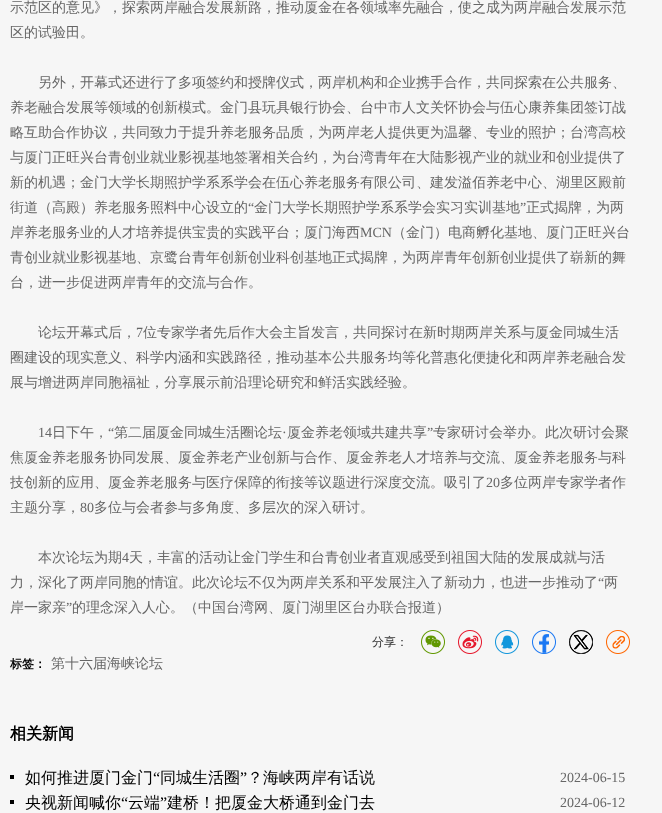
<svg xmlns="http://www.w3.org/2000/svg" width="662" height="813">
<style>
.a{font:500 14px WenQuanYi Zen Hei;fill:#666}
.b{font:14px Liberation Serif;fill:#666}
.c{font:500 12px WenQuanYi Zen Hei;fill:#333}
.d{font:bold 12px WenQuanYi Zen Hei;fill:#000}
.e{font:bold 16px WenQuanYi Zen Hei;fill:#000}
.f{font:500 16px WenQuanYi Zen Hei;fill:#000}
.g{font:16px Liberation Serif;fill:#000}
</style>
<rect width="100%" height="100%" fill="#f6f6f6"/>
<image href="1.png" x="421" y="630" width="24" height="24"/>
<image href="2.png" x="458" y="630" width="24" height="24"/>
<image href="3.png" x="495" y="630" width="24" height="24"/>
<image href="4.png" x="532" y="630" width="24" height="24"/>
<image href="5.png" x="569" y="630" width="24" height="24"/>
<image href="6.png" x="606" y="630" width="24" height="24"/>
<path fill="#000" d="M10 775h4v4H10z"/>
<path fill="#000" d="M10 800h4v4H10z"/>
<text class="a" x="10" y="12">示范区的意见》，探索两岸融合发展新路，推动厦金在各领域率先融合，使之成为两岸融合发展示范</text>
<text class="a" x="10" y="37">区的试验田。</text>
<text class="a" x="38" y="87">另外，开幕式还进行了多项签约和授牌仪式，两岸机构和企业携手合作，共同探索在公共服务、</text>
<text class="a" x="10" y="112">养老融合发展等领域的创新模式。金门县玩具银行协会、台中市人文关怀协会与伍心康养集团签订战</text>
<text class="a" x="10" y="137">略互助合作协议，共同致力于提升养老服务品质，为两岸老人提供更为温馨、专业的照护；台湾高校</text>
<text class="a" x="10" y="162">与厦门正旺兴台青创业就业影视基地签署相关合约，为台湾青年在大陆影视产业的就业和创业提供了</text>
<text class="a" x="10" y="187">新的机遇；金门大学长期照护学系系学会在伍心养老服务有限公司、建发溢佰养老中心、湖里区殿前</text>
<text class="a" x="10" y="212">街道（高殿）养老服务照料中心设立的</text>
<text class="b" x="248" y="212">“</text>
<text class="a" x="254" y="212">金门大学长期照护学系系学会实习实训基地</text>
<text class="b" x="520" y="212">”</text>
<text class="a" x="526" y="212">正式揭牌，为两</text>
<text class="a" x="10" y="237">岸养老服务业的人才培养提供宝贵的实践平台；厦门海西</text>
<text class="b" x="360" y="237">MCN</text>
<text class="a" x="392" y="237">（金门）电商孵化基地、厦门正旺兴台</text>
<text class="a" x="10" y="262">青创业就业影视基地、京鹭台青年创新创业科创基地正式揭牌，为两岸青年创新创业提供了崭新的舞</text>
<text class="a" x="10" y="287">台，进一步促进两岸青年的交流与合作。</text>
<text class="a" x="38" y="337">论坛开幕式后，</text>
<text class="b" x="136" y="337">7</text>
<text class="a" x="143" y="337">位专家学者先后作大会主旨发言，共同探讨在新时期两岸关系与厦金同城生活</text>
<text class="a" x="10" y="362">圈建设的现实意义、科学内涵和实践路径，推动基本公共服务均等化普惠化便捷化和两岸养老融合发</text>
<text class="a" x="10" y="387">展与增进两岸同胞福祉，分享展示前沿理论研究和鲜活实践经验。</text>
<text class="b" x="38" y="437">14</text>
<text class="a" x="52" y="437">日下午，</text>
<text class="b" x="108" y="437">“</text>
<text class="a" x="114" y="437">第二届厦金同城生活圈论坛</text>
<text class="a" x="287" y="437">厦金养老领域共建共享</text>
<text class="b" x="427" y="437">”</text>
<text class="a" x="433" y="437">专家研讨会举办。此次研讨会聚</text>
<text class="b" x="282" y="437">·</text>
<text class="a" x="10" y="462">焦厦金养老服务协同发展、厦金养老产业创新与合作、厦金养老人才培养与交流、厦金养老服务与科</text>
<text class="a" x="10" y="487">技创新的应用、厦金养老服务与医疗保障的衔接等议题进行深度交流。吸引了</text>
<text class="b" x="486" y="487">20</text>
<text class="a" x="500" y="487">多位两岸专家学者作</text>
<text class="a" x="10" y="512">主题分享，</text>
<text class="b" x="80" y="512">80</text>
<text class="a" x="94" y="512">多位与会者参与多角度、多层次的深入研讨。</text>
<text class="a" x="38" y="562">本次论坛为期</text>
<text class="b" x="122" y="562">4</text>
<text class="a" x="129" y="562">天，丰富的活动让金门学生和台青创业者直观感受到祖国大陆的发展成就与活</text>
<text class="a" x="10" y="587">力，深化了两岸同胞的情谊。此次论坛不仅为两岸关系和平发展注入了新动力，也进一步推动了</text>
<text class="b" x="598" y="587">“</text>
<text class="a" x="604" y="587">两</text>
<text class="a" x="10" y="612">岸一家亲</text>
<text class="b" x="66" y="612">”</text>
<text class="a" x="72" y="612">的理念深入人心。（中国台湾网、厦门湖里区台办联合报道）</text>
<text class="c" x="372" y="646">分享：</text>
<text class="d" x="10" y="668">标签：</text>
<text class="a" x="51" y="668">第十六届海峡论坛</text>
<text class="e" x="10" y="739">相关新闻</text>
<text class="f" x="25" y="783">如何推进厦门金门</text>
<text class="g" x="153" y="783">“</text>
<text class="f" x="160" y="783">同城生活圈</text>
<text class="g" x="240" y="783">”</text>
<text class="f" x="247" y="783">？海峡两岸有话说</text>
<text class="b" x="560" y="782">2024-06-15</text>
<text class="f" x="25" y="808">央视新闻喊你</text>
<text class="g" x="121" y="808">“</text>
<text class="f" x="128" y="808">云端</text>
<text class="g" x="160" y="808">”</text>
<text class="f" x="167" y="808">建桥！把厦金大桥通到金门去</text>
<text class="b" x="560" y="807">2024-06-12</text>
</svg>
